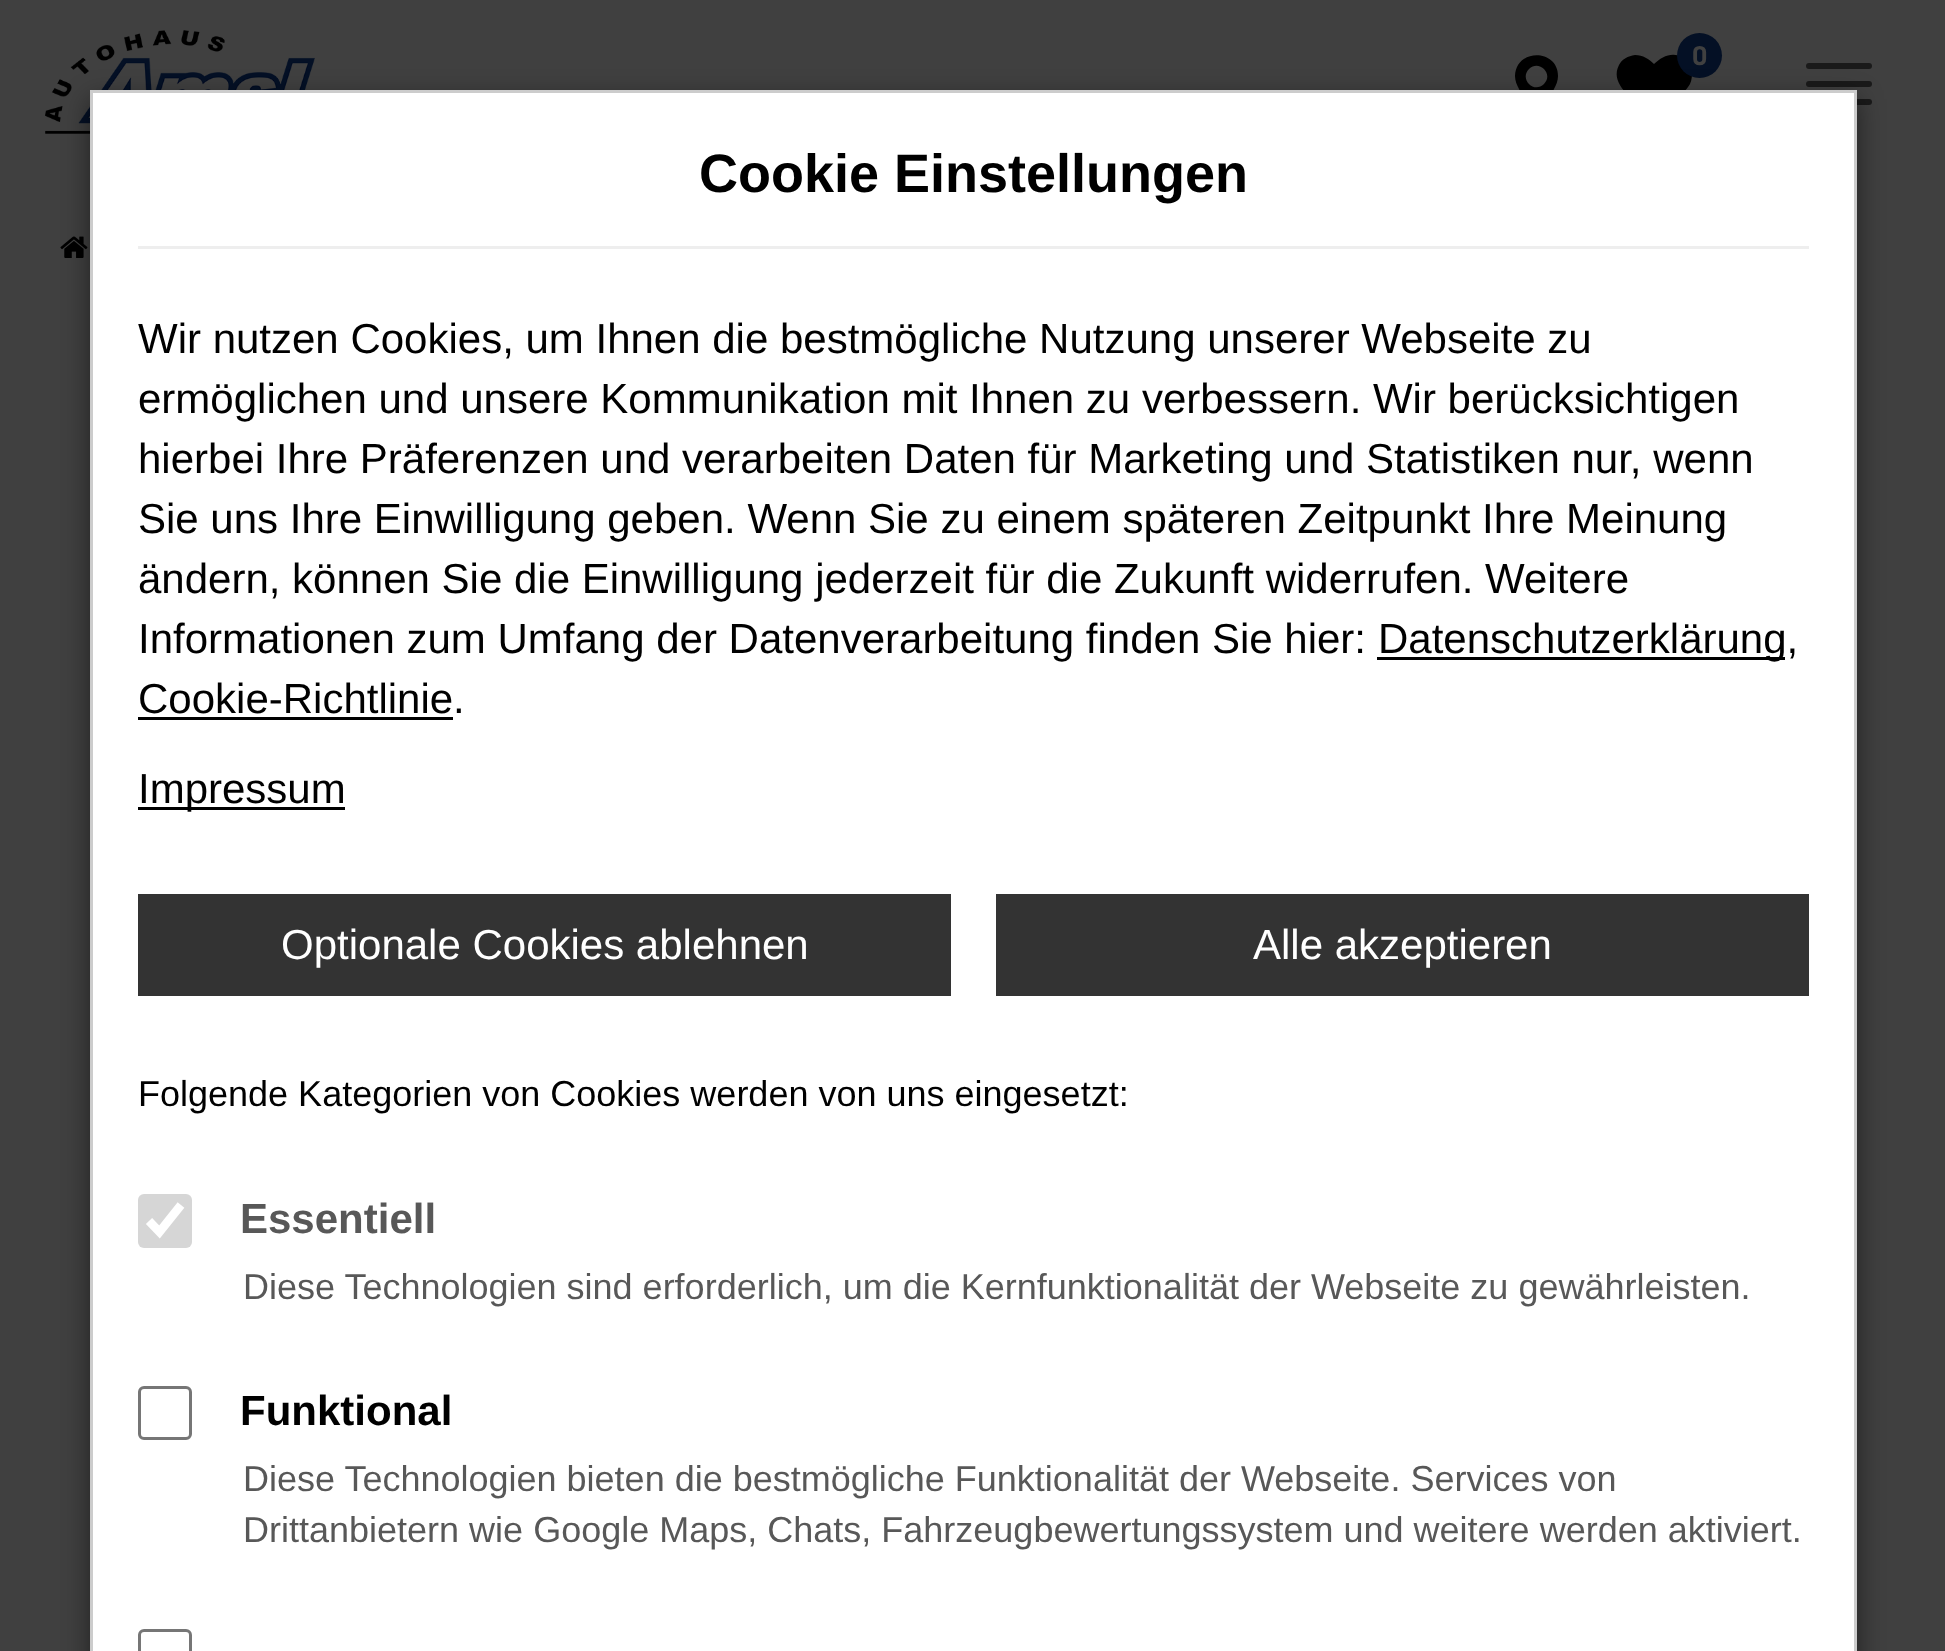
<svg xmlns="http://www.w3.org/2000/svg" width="1945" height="1651">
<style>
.a{font:bold 27px Barlow;fill:#404040}
.b{font:bold 54px Liberation Sans;fill:#000}
.c{font:42px Liberation Sans;fill:#000}
.d{font:42px Liberation Sans;fill:#fff}
.e{font:36px Liberation Sans;fill:#000}
.f{font:bold 42px Liberation Sans;fill:#585858}
.g{font:36px Liberation Sans;fill:#585858}
.h{font:bold 42px Liberation Sans;fill:#000}
</style>
<rect width="100%" height="100%" fill="#404040"/>
<image href="1.png" x="45" y="30" width="270" height="104"/>
<rect fill="#1a1a1a" x="1806" y="63" width="66" height="6" rx="3"/>
<rect fill="#1a1a1a" x="1806" y="81" width="66" height="6" rx="3"/>
<rect fill="#1a1a1a" x="1806" y="99" width="66" height="6" rx="3"/>
<path fill="#000" d="M1544 84c10-10-5-25-15-15c-10 10 5 25 15 15zm14-8c0 5-2 9-4 13l-13 28c-1 1-2 2-4 2c-5 1-6-5-8-8l-10-22c-2-4-4-8-4-13c1-28 43-27 43 0z"/>
<path fill="#000" d="M1656 119c-1 0-2 1-3 0l-13-13c-11-10-30-24-21-41c3-6 9-9 16-10c8 0 14 4 19 9c8-8 19-13 30-6c4 3 7 7 8 12c0 5 0 10-2 14c-4 7-11 12-16 18z"/>
<circle fill="#041025" cx="1699.5" cy="55.5" r="22.5"/>
<image href="2.png" x="60" y="236" width="28" height="22"/>
<path fill="#00000080" filter="blur(13.5px)" d="M90 99h1767v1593H90z"/>
<path fill="#fff" stroke="#ccc" stroke-width="3" d="M91.5 91.5h1764v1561H91.5z"/>
<path fill="#eee" d="M138 246h1671v3H138z"/>
<path fill="#000" d="M1377 657h408v3H1377z"/>
<path fill="#000" d="M138 717h315v3H138z"/>
<path fill="#000" d="M138 807h207v3H138z"/>
<path fill="#333" d="M138 894h813v102H138z"/>
<path fill="#333" d="M996 894h813v102H996z"/>
<rect fill="#d6d6d6" x="138" y="1194" width="54" height="54" rx="6"/>
<path fill="none" stroke="#fff" stroke-width="8.6" d="M149 1221l10.5 11l21.5-27"/>
<rect fill="none" stroke="#767676" stroke-width="3" x="139.5" y="1387.5" width="51" height="51" rx="4.5"/>
<rect fill="none" stroke="#767676" stroke-width="3" x="139.5" y="1630.5" width="51" height="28" rx="4.5"/>
<text class="a" x="1692" y="65">0</text>
<text class="b" x="699" y="192">Cookie Einstellungen</text>
<text class="c" x="138" y="353">Wir nutzen Cookies, um Ihnen die bestmögliche Nutzung unserer Webseite zu</text>
<text class="c" x="138" y="413">ermöglichen und unsere Kommunikation mit Ihnen zu verbessern. Wir berücksichtigen</text>
<text class="c" x="138" y="473">hierbei Ihre Präferenzen und verarbeiten Daten für Marketing und Statistiken nur, wenn</text>
<text class="c" x="138" y="533">Sie uns Ihre Einwilligung geben. Wenn Sie zu einem späteren Zeitpunkt Ihre Meinung</text>
<text class="c" x="138" y="593">ändern, können Sie die Einwilligung jederzeit für die Zukunft widerrufen. Weitere</text>
<text class="c" x="138" y="653">Informationen zum Umfang der Datenverarbeitung finden Sie hier:</text>
<text class="c" x="1378" y="653">Datenschutzerklärung,</text>
<text class="c" x="138" y="713">Cookie-Richtlinie.</text>
<text class="c" x="138" y="803">Impressum</text>
<text class="d" x="281" y="959">Optionale Cookies ablehnen</text>
<text class="d" x="1253" y="959">Alle akzeptieren</text>
<text class="e" x="138" y="1106">Folgende Kategorien von Cookies werden von uns eingesetzt:</text>
<text class="f" x="240" y="1233">Essentiell</text>
<text class="g" x="243" y="1299">Diese Technologien sind erforderlich, um die Kernfunktionalität der Webseite zu gewährleisten.</text>
<text class="h" x="240" y="1425">Funktional</text>
<text class="g" x="243" y="1491">Diese Technologien bieten die bestmögliche Funktionalität der Webseite. Services von</text>
<text class="g" x="243" y="1542">Drittanbietern wie Google Maps, Chats, Fahrzeugbewertungssystem und weitere werden aktiviert.</text>
</svg>
